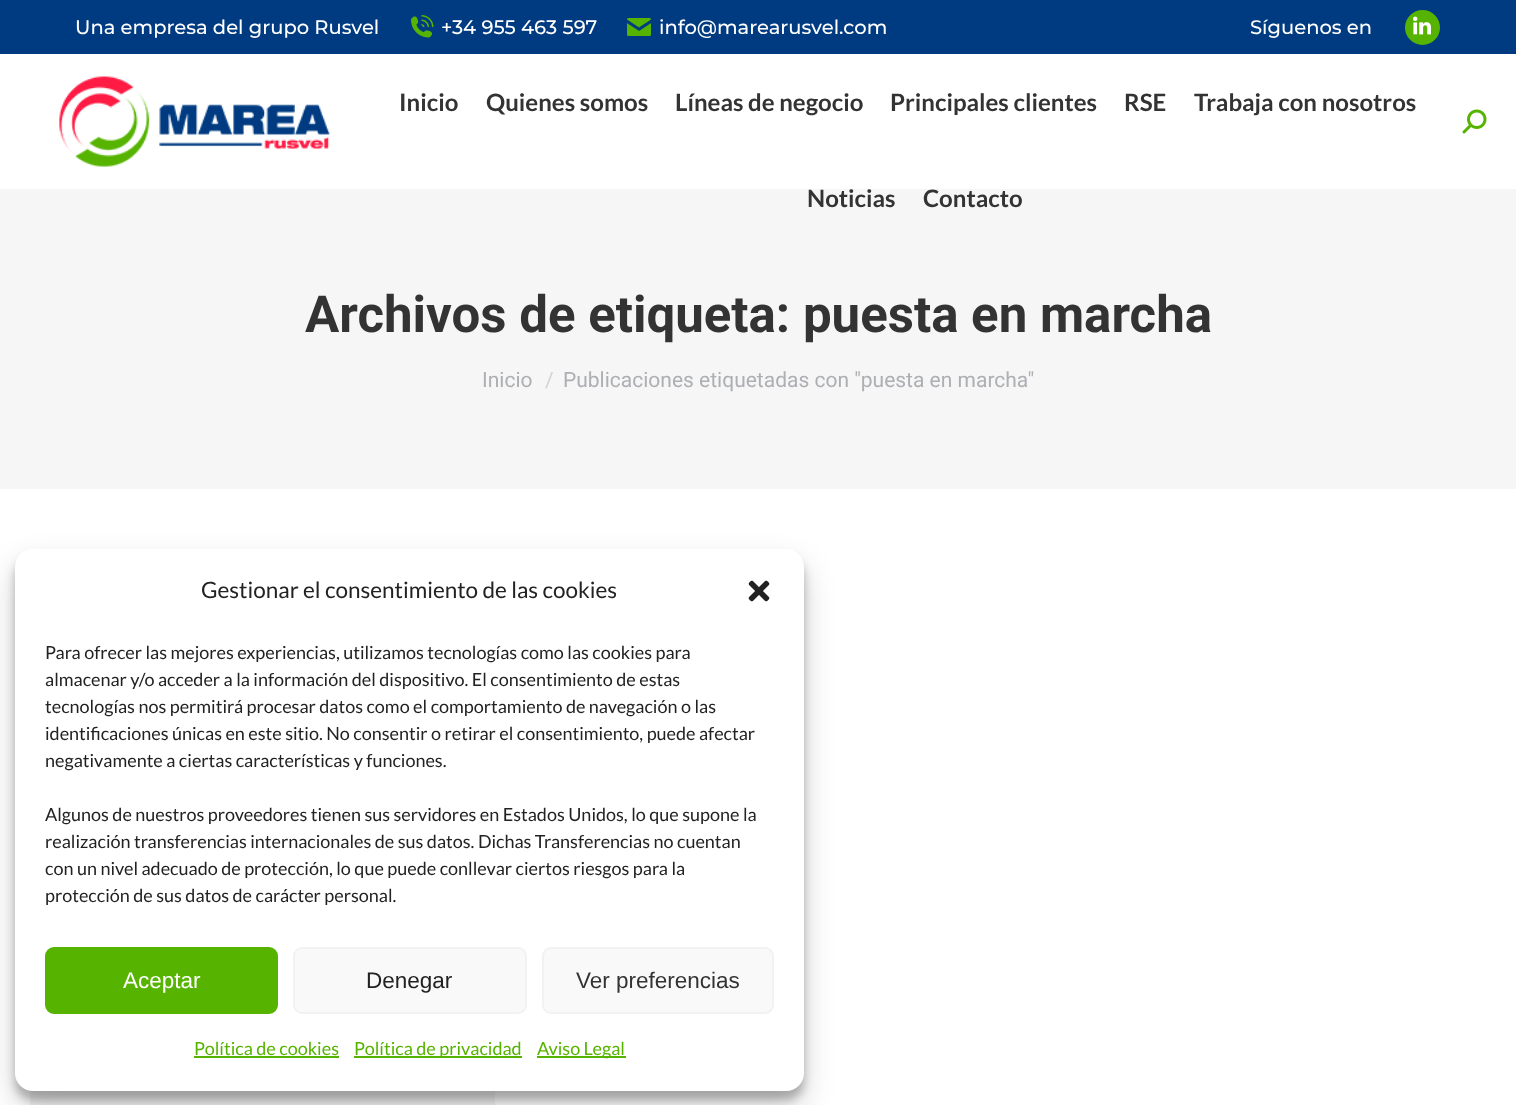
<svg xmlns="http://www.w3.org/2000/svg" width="1516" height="1105">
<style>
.a{font:500 19.5px Montserrat;fill:#fff}
.b{font:bold 24px Lato;fill:#333}
.c{font:bold 51px Roboto;fill:#333}
.d{font:21px Roboto;fill:#adafb3}
.e{font:21px Roboto;fill:#d2d3d5}
.f{font:22.5px Lato;fill:#222}
.g{font:18px Lato;fill:#222}
.h{font:22.5px Liberation Sans;fill:#fff}
.i{font:22.5px Liberation Sans;fill:#222}
.j{font:22.5px Liberation Sans;fill:#333}
.k{font:18px Lato;fill:#56b400}
</style>
<rect width="100%" height="100%" fill="#fff"/>
<path fill="#003b82" d="M0 0h1516v54H0z"/>
<image href="1.png" x="411" y="15" width="23" height="23"/>
<image href="2.png" x="627" y="18" width="24" height="18"/>
<circle fill="#56b400" stroke="#003b82" stroke-width="2" cx="1422.5" cy="27.5" r="18.5"/>
<image href="3.png" x="1413" y="16" width="18" height="19"/>
<image href="4.png" x="59" y="76" width="271" height="91"/>
<image href="5.png" x="1462" y="109" width="25" height="25"/>
<path fill="#f6f6f6" d="M0 189h1516v300H0z"/>
<path fill="#f5f5f5" d="M30 1090h465v15H30z"/>
<rect fill="#0000003b" filter="blur(4.5px)" x="15" y="558" width="789" height="542" rx="18"/>
<rect fill="#00000030" filter="blur(15px)" x="15" y="564" width="789" height="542" rx="18"/>
<rect fill="#fff" x="15" y="549" width="789" height="542" rx="18"/>
<image href="6.png" x="748" y="580" width="22" height="22"/>
<rect fill="#56b400" stroke="#56b400" stroke-width="2" x="46" y="948" width="231" height="65" rx="8"/>
<rect fill="#f9f9f9" stroke="#f2f2f2" stroke-width="2" x="294" y="948" width="232" height="65" rx="8"/>
<rect fill="#f9f9f9" stroke="#f2f2f2" stroke-width="2" x="543" y="948" width="230" height="65" rx="8"/>
<path fill="#56b400" d="M194 1056h145v2H194z"/>
<path fill="#56b400" d="M354 1056h168v2H354z"/>
<path fill="#56b400" d="M537 1056h89v2H537z"/>
<text class="a" x="75" y="34">Una empresa del grupo Rusvel</text>
<text class="a" x="441" y="34">+34 955 463 597</text>
<text class="a" x="659" y="34">info@marearusvel.com</text>
<text class="a" x="1250" y="34">Síguenos en</text>
<text class="b" x="399" y="111">Inicio</text>
<text class="b" x="486" y="111">Quienes somos</text>
<text class="b" x="675" y="111">Líneas de negocio</text>
<text class="b" x="890" y="111">Principales clientes</text>
<text class="b" x="1124" y="111">RSE</text>
<text class="b" x="1194" y="111">Trabaja con nosotros</text>
<text class="b" x="807" y="207">Noticias</text>
<text class="b" x="923" y="207">Contacto</text>
<text class="c" x="305" y="332">Archivos de etiqueta: puesta en marcha</text>
<text class="d" x="482" y="387">Inicio</text>
<text class="e" x="545" y="387">/</text>
<text class="d" x="563" y="387">Publicaciones etiquetadas con "puesta en marcha"</text>
<text class="f" x="201" y="598">Gestionar el consentimiento de las cookies</text>
<text class="g" x="45" y="659">Para ofrecer las mejores experiencias, utilizamos tecnologías como las cookies para</text>
<text class="g" x="45" y="686">almacenar y/o acceder a la información del dispositivo. El consentimiento de estas</text>
<text class="g" x="45" y="713">tecnologías nos permitirá procesar datos como el comportamiento de navegación o las</text>
<text class="g" x="45" y="740">identificaciones únicas en este sitio. No consentir o retirar el consentimiento, puede afectar</text>
<text class="g" x="45" y="767">negativamente a ciertas características y funciones.</text>
<text class="g" x="45" y="821">Algunos de nuestros proveedores tienen sus servidores en Estados Unidos, lo que supone la</text>
<text class="g" x="45" y="848">realización transferencias internacionales de sus datos. Dichas Transferencias no cuentan</text>
<text class="g" x="45" y="875">con un nivel adecuado de protección, lo que puede conllevar ciertos riesgos para la</text>
<text class="g" x="45" y="902">protección de sus datos de carácter personal.</text>
<text class="h" x="123" y="988">Aceptar</text>
<text class="i" x="366" y="988">Denegar</text>
<text class="j" x="576" y="988">Ver preferencias</text>
<text class="k" x="194" y="1055">Política de cookies</text>
<text class="k" x="354" y="1055">Política de privacidad</text>
<text class="k" x="537" y="1055">Aviso Legal</text>
</svg>
